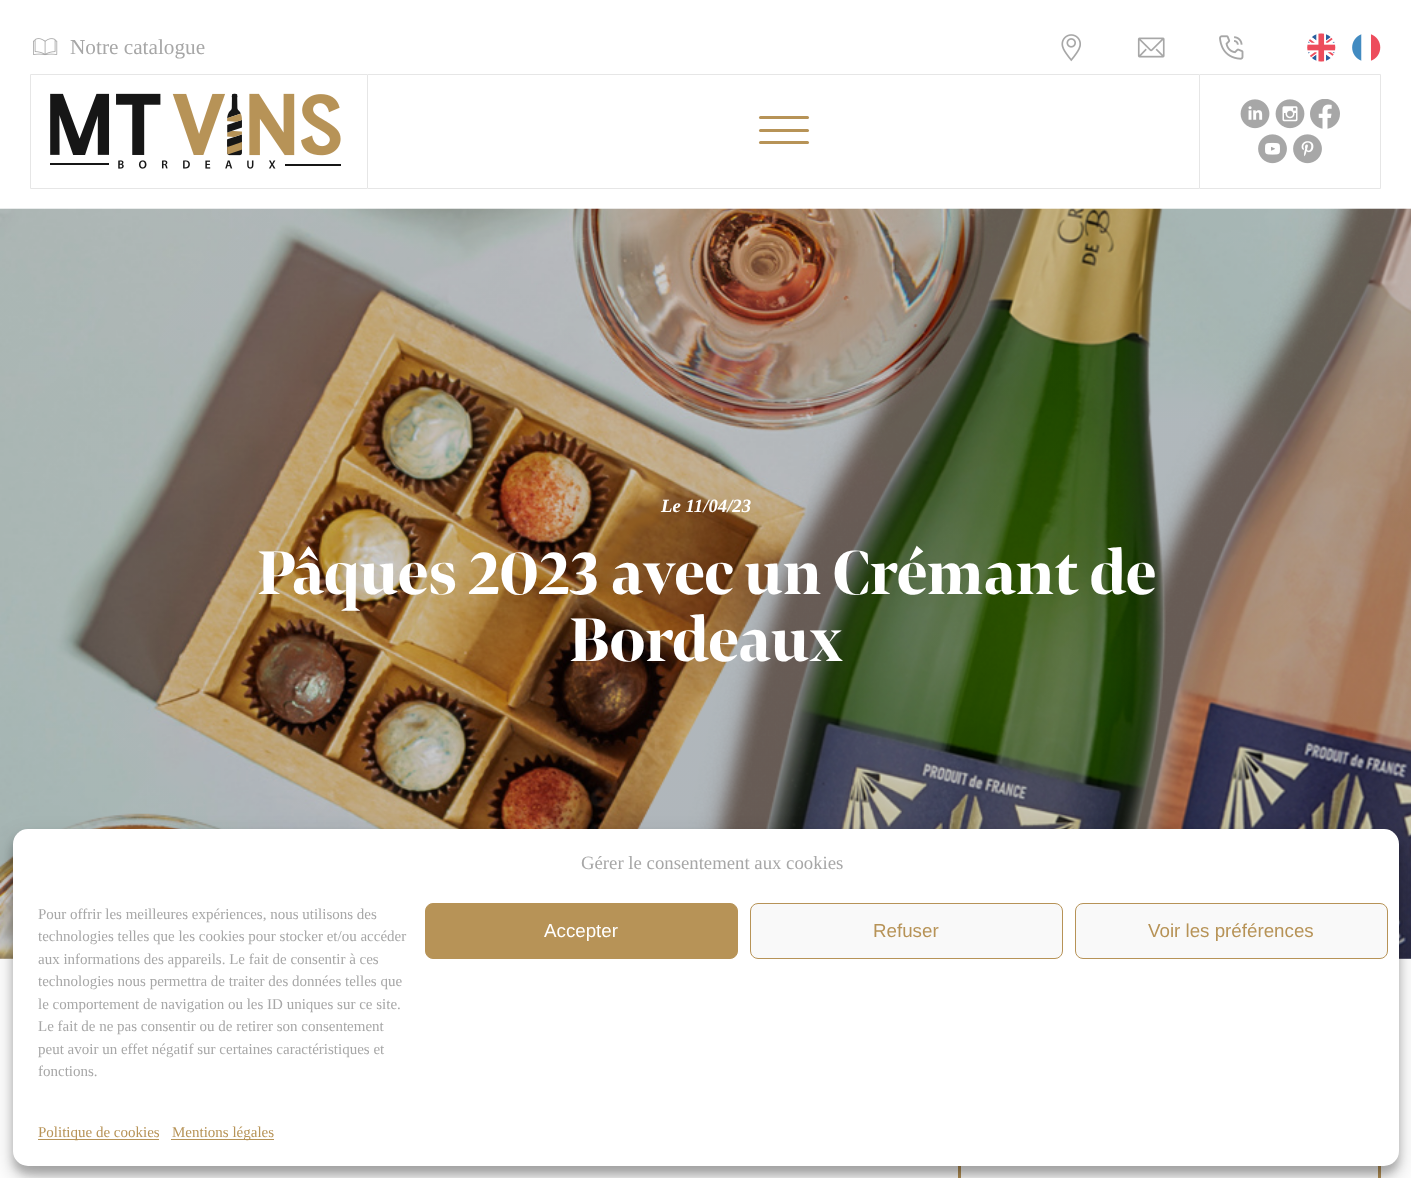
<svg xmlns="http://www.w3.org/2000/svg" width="1411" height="1178">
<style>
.a{font:21.25px Liberation Serif;fill:#a7a7a7}
.b{font:italic bold 18.75px Liberation Serif;fill:#fff}
.c{font:800 64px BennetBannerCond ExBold;fill:#fff}
.d{font:18.75px Liberation Serif;fill:#a7a7a7}
.e{font:15px Liberation Serif;fill:#a7a7a7}
.f{font:18.75px Liberation Sans;fill:#fff}
.g{font:18.75px Liberation Sans;fill:#b79357}
.h{font:15px Liberation Serif;fill:#b79357}
</style>
<rect width="100%" height="100%" fill="#fff"/>
<image href="1.png" x="33" y="38" width="25" height="18"/>
<image href="2.png" x="1061" y="34" width="20" height="28"/>
<image href="3.png" x="1137" y="37" width="28" height="21"/>
<image href="4.png" x="1219" y="35" width="25" height="25"/>
<image href="5.png" x="1307" y="33" width="29" height="29"/>
<image href="6.png" x="1352" y="34" width="29" height="27"/>
<path fill="none" stroke="#e6e6e6" d="M30.5 74.5h337v114H30.5z"/>
<image href="7.png" x="50" y="93" width="291" height="76"/>
<path fill="#e6e6e6" d="M368 74h831v1H368z"/>
<path fill="#e6e6e6" d="M368 188h831v1H368z"/>
<rect fill="#b79357" x="759" y="116" width="50" height="3" rx="1.5"/>
<rect fill="#b79357" x="759" y="129" width="50" height="3" rx="1.5"/>
<rect fill="#b79357" x="759" y="141" width="50" height="3" rx="1.5"/>
<path fill="none" stroke="#e6e6e6" d="M1199.5 74.5h181v114H1199.5z"/>
<image href="8.png" x="1240" y="99" width="30" height="30"/>
<image href="9.png" x="1275" y="99" width="30" height="30"/>
<image href="10.png" x="1310" y="99" width="30" height="30"/>
<image href="11.png" x="1258" y="134" width="29" height="30"/>
<image href="12.png" x="1293" y="134" width="29" height="30"/>
<image href="13.png" x="0" y="208" width="1411" height="751"/>
<path fill="none" stroke="#b79357" stroke-width="3" d="M959.5 1156.5h420v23H959.5z"/>
<rect fill="#0000003b" filter="blur(4px)" x="13" y="836" width="1386" height="338" rx="15"/>
<rect fill="#00000030" filter="blur(12.5px)" x="13" y="841" width="1386" height="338" rx="15"/>
<rect fill="#fff" x="13" y="829" width="1386" height="337" rx="15"/>
<rect fill="#b79357" stroke="#b79357" x="425.5" y="903.5" width="312" height="55" rx="7.5"/>
<rect fill="#f9f9f9" stroke="#b79357" x="750.5" y="903.5" width="312" height="55" rx="7.5"/>
<rect fill="#f9f9f9" stroke="#b79357" x="1075.5" y="903.5" width="312" height="55" rx="7.5"/>
<path fill="#b79357" d="M38 1139h121v1H38z"/>
<path fill="#b79357" d="M171 1139h103v1H171z"/>
<text class="a" x="70" y="54">Notre catalogue</text>
<text class="b" x="661" y="512">Le 11/04/23</text>
<text class="c" x="257" y="594">Pâques 2023 avec un Crémant de</text>
<text class="c" x="569" y="661">Bordeaux</text>
<text class="d" x="581" y="869">Gérer le consentement aux cookies</text>
<text class="e" x="38" y="919">Pour offrir les meilleures expériences, nous utilisons des</text>
<text class="e" x="38" y="941">technologies telles que les cookies pour stocker et/ou accéder</text>
<text class="e" x="38" y="964">aux informations des appareils. Le fait de consentir à ces</text>
<text class="e" x="38" y="986">technologies nous permettra de traiter des données telles que</text>
<text class="e" x="38" y="1009">le comportement de navigation ou les ID uniques sur ce site.</text>
<text class="e" x="38" y="1031">Le fait de ne pas consentir ou de retirer son consentement</text>
<text class="e" x="38" y="1054">peut avoir un effet négatif sur certaines caractéristiques et</text>
<text class="e" x="38" y="1076">fonctions.</text>
<text class="f" x="544" y="937">Accepter</text>
<text class="g" x="873" y="937">Refuser</text>
<text class="g" x="1148" y="937">Voir les préférences</text>
<text class="h" x="38" y="1137">Politique de cookies</text>
<text class="h" x="172" y="1137">Mentions légales</text>
</svg>
